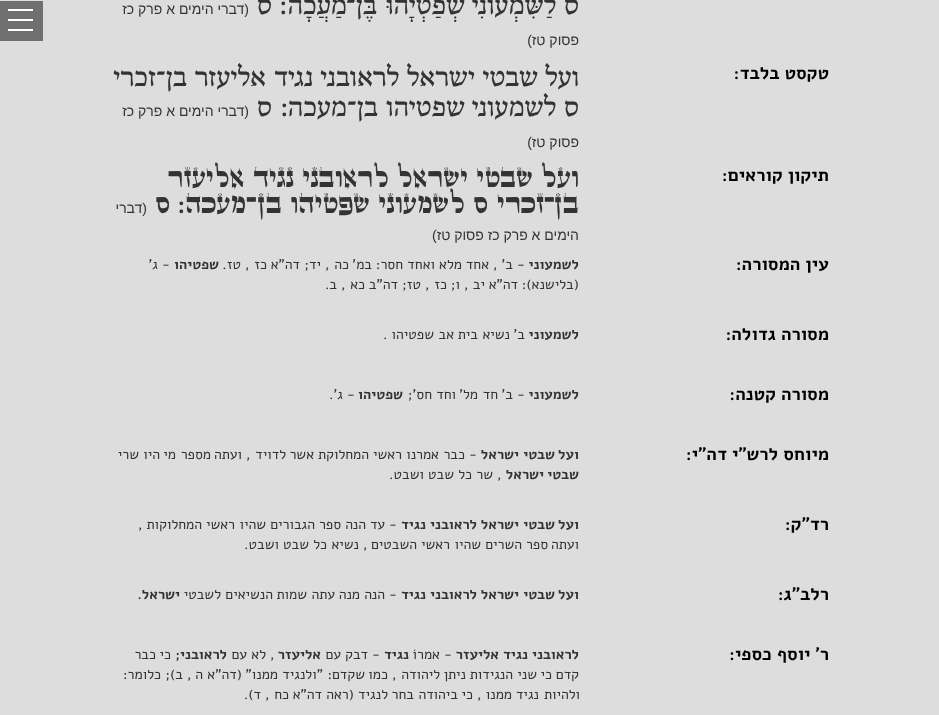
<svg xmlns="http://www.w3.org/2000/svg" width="939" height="715">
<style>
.a{font:28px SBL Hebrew;direction:rtl;fill:#333}
.b{font:28px SBL Hebrew;fill:#333}
.c{font:14px Liberation Sans;direction:rtl;fill:#333}
.d{font:bold 18px Alef;direction:rtl;fill:#000}
.e{font:24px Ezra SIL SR;direction:rtl;fill:#333}
.f{font:24px Ezra SIL SR;fill:#333}
.g{font:bold 14px Alef;direction:rtl;fill:#333}
.h{font:14px Alef;fill:#333}
.i{font:14px Alef;direction:rtl;fill:#333}
</style>
<rect width="100%" height="100%" fill="#ddd"/>
<path fill="#6f6f6f" d="M0 1h43v40H0z"/>
<path fill="#fff" d="M8 19h25v2H8z"/>
<path fill="#fff" d="M8 9h25v2H8z"/>
<path fill="#fff" d="M8 29h25v2H8z"/>
<text class="a" x="579" y="14">ס</text>
<text class="a" x="556" y="14">לַשִּׁמְעוֹנִי</text>
<text class="a" x="465" y="14">שְׁפַטְיָהוּ</text>
<text class="a" x="377" y="14">בֶּן</text>
<text class="a" x="356" y="14">־</text>
<text class="a" x="347" y="14">מַעֲכָה</text>
<text class="b" x="279" y="14">:</text>
<text class="a" x="272" y="14">ס</text>
<text class="c" x="249" y="14">(דברי הימים א פרק כז</text>
<text class="c" x="579" y="45">פסוק טז)</text>
<text class="d" x="829" y="79">טקסט בלבד:</text>
<text class="a" x="579" y="86">ועל</text>
<text class="a" x="538" y="86">שבטי</text>
<text class="a" x="475" y="86">ישראל</text>
<text class="a" x="399" y="86">לראובני</text>
<text class="a" x="313" y="86">נגיד</text>
<text class="a" x="266" y="86">אליעזר</text>
<text class="a" x="187" y="86">בן</text>
<text class="a" x="166" y="86">־</text>
<text class="a" x="156" y="86">זכרי</text>
<text class="a" x="579" y="116">ס</text>
<text class="a" x="556" y="116">לשמעוני</text>
<text class="a" x="465" y="116">שפטיהו</text>
<text class="a" x="378" y="116">בן</text>
<text class="a" x="357" y="116">־</text>
<text class="a" x="347" y="116">מעכה</text>
<text class="b" x="280" y="116">:</text>
<text class="a" x="272" y="116">ס</text>
<text class="c" x="249" y="116">(דברי הימים א פרק כז</text>
<text class="c" x="579" y="147">פסוק טז)</text>
<text class="d" x="829" y="181">תיקון קוראים:</text>
<text class="e" x="579" y="187">ועל</text>
<text class="e" x="533" y="187">שבטי</text>
<text class="e" x="468" y="187">ישראל</text>
<text class="e" x="389" y="187">לראובני</text>
<text class="e" x="294" y="187">נגיד</text>
<text class="e" x="244" y="187">אליעזר</text>
<text class="e" x="579" y="213">בן</text>
<text class="e" x="555" y="213">־</text>
<text class="e" x="544" y="213">זכרי</text>
<text class="e" x="488" y="213">ס</text>
<text class="e" x="465" y="213">לשמעוני</text>
<text class="e" x="370" y="213">שפטיהו</text>
<text class="e" x="282" y="213">בן</text>
<text class="e" x="257" y="213">־</text>
<text class="e" x="246" y="213">מעכה</text>
<text class="e" x="170" y="213">ס</text>
<text class="f" x="178" y="213">:</text>
<text class="c" x="147" y="213">(דברי</text>
<text class="c" x="579" y="240">הימים א פרק כז פסוק טז)</text>
<text class="d" x="829" y="270">עין המסורה:</text>
<text class="g" x="579" y="269">לשמעוני</text>
<text class="h" x="517" y="269">-</text>
<text class="i" x="513" y="269">ב'</text>
<text class="i" x="489" y="269">אחד</text>
<text class="i" x="462" y="269">מלא</text>
<text class="i" x="435" y="269">ואחד</text>
<text class="i" x="403" y="269">חסר:</text>
<text class="i" x="372" y="269">במ'</text>
<text class="i" x="349" y="269">כה</text>
<text class="i" x="321" y="269">יד;</text>
<text class="i" x="300" y="269">דה"א</text>
<text class="i" x="267" y="269">כז</text>
<text class="i" x="241" y="269">טז.</text>
<text class="g" x="219" y="269">שפטיהו</text>
<text class="h" x="162" y="269">-</text>
<text class="i" x="158" y="269">ג'</text>
<text class="h" x="493" y="269">,</text>
<text class="h" x="325" y="269">,</text>
<text class="h" x="245" y="269">,</text>
<text class="i" x="579" y="289">(בלישנא):</text>
<text class="i" x="518" y="289">דה"א</text>
<text class="i" x="485" y="289">יב</text>
<text class="h" x="464" y="289">,</text>
<text class="i" x="460" y="289">ו;</text>
<text class="i" x="447" y="289">כז</text>
<text class="h" x="425" y="289">,</text>
<text class="i" x="421" y="289">טז;</text>
<text class="i" x="398" y="289">דה"ב</text>
<text class="i" x="365" y="289">כא</text>
<text class="h" x="341" y="289">,</text>
<text class="i" x="337" y="289">ב.</text>
<text class="d" x="829" y="340">מסורה גדולה:</text>
<text class="g" x="579" y="339">לשמעוני</text>
<text class="i" x="525" y="339">ב'</text>
<text class="i" x="510" y="339">נשיא</text>
<text class="i" x="478" y="339">בית</text>
<text class="i" x="454" y="339">אב</text>
<text class="i" x="434" y="339">שפטיהו</text>
<text class="h" x="383" y="339">.</text>
<text class="d" x="829" y="400">מסורה קטנה:</text>
<text class="g" x="579" y="399">לשמעוני</text>
<text class="h" x="517" y="399">-</text>
<text class="i" x="513" y="399">ב'</text>
<text class="i" x="498" y="399">חד</text>
<text class="i" x="478" y="399">מל'</text>
<text class="i" x="456" y="399">וחד</text>
<text class="i" x="432" y="399">חס';</text>
<text class="g" x="403" y="399">שפטיהו</text>
<text class="h" x="347" y="399">-</text>
<text class="i" x="343" y="399">ג'.</text>
<text class="d" x="829" y="460">מיוחס לרש"י דה"י:</text>
<text class="g" x="579" y="459">ועל</text>
<text class="g" x="555" y="459">שבטי</text>
<text class="g" x="519" y="459">ישראל</text>
<text class="h" x="469" y="459">-</text>
<text class="i" x="465" y="459">כבר</text>
<text class="i" x="439" y="459">אמרנו</text>
<text class="i" x="402" y="459">ראשי</text>
<text class="i" x="369" y="459">המחלוקת</text>
<text class="i" x="314" y="459">אשר</text>
<text class="i" x="286" y="459">לדויד</text>
<text class="i" x="242" y="459">ועתה</text>
<text class="i" x="211" y="459">מספר</text>
<text class="i" x="176" y="459">מי</text>
<text class="i" x="160" y="459">היו</text>
<text class="i" x="139" y="459">שרי</text>
<text class="h" x="246" y="459">,</text>
<text class="g" x="579" y="479">שבטי</text>
<text class="g" x="544" y="479">ישראל</text>
<text class="h" x="497" y="479">,</text>
<text class="i" x="493" y="479">שר</text>
<text class="i" x="472" y="479">כל</text>
<text class="i" x="454" y="479">שבט</text>
<text class="i" x="424" y="479">ושבט.</text>
<text class="d" x="829" y="530">רד"ק:</text>
<text class="g" x="579" y="529">ועל</text>
<text class="g" x="555" y="529">שבטי</text>
<text class="g" x="519" y="529">ישראל</text>
<text class="g" x="477" y="529">לראובני</text>
<text class="g" x="426" y="529">נגיד</text>
<text class="h" x="389" y="529">-</text>
<text class="i" x="385" y="529">עד</text>
<text class="i" x="366" y="529">הנה</text>
<text class="i" x="341" y="529">ספר</text>
<text class="i" x="315" y="529">הגבורים</text>
<text class="i" x="266" y="529">שהיו</text>
<text class="i" x="235" y="529">ראשי</text>
<text class="i" x="202" y="529">המחלוקות</text>
<text class="h" x="138" y="529">,</text>
<text class="i" x="579" y="549">ועתה</text>
<text class="i" x="548" y="549">ספר</text>
<text class="i" x="522" y="549">השרים</text>
<text class="i" x="481" y="549">שהיו</text>
<text class="i" x="450" y="549">ראשי</text>
<text class="i" x="417" y="549">השבטים</text>
<text class="h" x="363" y="549">,</text>
<text class="i" x="359" y="549">נשיא</text>
<text class="i" x="327" y="549">כל</text>
<text class="i" x="309" y="549">שבט</text>
<text class="i" x="279" y="549">ושבט.</text>
<text class="d" x="829" y="600">רלב"ג:</text>
<text class="g" x="579" y="599">ועל</text>
<text class="g" x="555" y="599">שבטי</text>
<text class="g" x="519" y="599">ישראל</text>
<text class="g" x="477" y="599">לראובני</text>
<text class="g" x="426" y="599">נגיד</text>
<text class="h" x="389" y="599">-</text>
<text class="i" x="385" y="599">הנה</text>
<text class="i" x="360" y="599">מנה</text>
<text class="i" x="335" y="599">עתה</text>
<text class="i" x="307" y="599">שמות</text>
<text class="i" x="273" y="599">הנשיאים</text>
<text class="i" x="221" y="599">לשבטי</text>
<text class="g" x="180" y="599">ישראל.</text>
<text class="d" x="829" y="660">ר' יוסף כספי:</text>
<text class="g" x="579" y="659">לראובני</text>
<text class="g" x="528" y="659">נגיד</text>
<text class="g" x="499" y="659">אליעזר</text>
<text class="h" x="444" y="659">-</text>
<text class="i" x="440" y="659">אמרוֹ</text>
<text class="g" x="409" y="659">נגיד</text>
<text class="h" x="372" y="659">-</text>
<text class="i" x="368" y="659">דבק</text>
<text class="i" x="341" y="659">עם</text>
<text class="g" x="321" y="659">אליעזר</text>
<text class="i" x="266" y="659">לא</text>
<text class="i" x="247" y="659">עם</text>
<text class="g" x="227" y="659">לראובני;</text>
<text class="i" x="171" y="659">כי</text>
<text class="i" x="156" y="659">כבר</text>
<text class="h" x="270" y="659">,</text>
<text class="i" x="579" y="679">קדם</text>
<text class="i" x="552" y="679">כי</text>
<text class="i" x="537" y="679">שני</text>
<text class="i" x="513" y="679">הנגידות</text>
<text class="i" x="466" y="679">ניתן</text>
<text class="i" x="440" y="679">ליהודה</text>
<text class="h" x="392" y="679">,</text>
<text class="i" x="388" y="679">כמו</text>
<text class="i" x="365" y="679">שקדם:</text>
<text class="i" x="323" y="679">"ולנגיד</text>
<text class="i" x="278" y="679">ממנו"</text>
<text class="i" x="242" y="679">(דה"א</text>
<text class="i" x="203" y="679">ה</text>
<text class="h" x="187" y="679">,</text>
<text class="i" x="183" y="679">ב);</text>
<text class="i" x="161" y="679">כלומר:</text>
<text class="i" x="580" y="699">ולהיות</text>
<text class="i" x="539" y="699">נגיד</text>
<text class="i" x="512" y="699">ממנו</text>
<text class="h" x="477" y="699">,</text>
<text class="i" x="473" y="699">כי</text>
<text class="i" x="458" y="699">ביהודה</text>
<text class="i" x="414" y="699">בחר</text>
<text class="i" x="388" y="699">לנגיד</text>
<text class="i" x="354" y="699">(ראה</text>
<text class="i" x="322" y="699">דה"א</text>
<text class="i" x="289" y="699">כח</text>
<text class="h" x="265" y="699">,</text>
<text class="i" x="261" y="699">ד).</text>
</svg>
